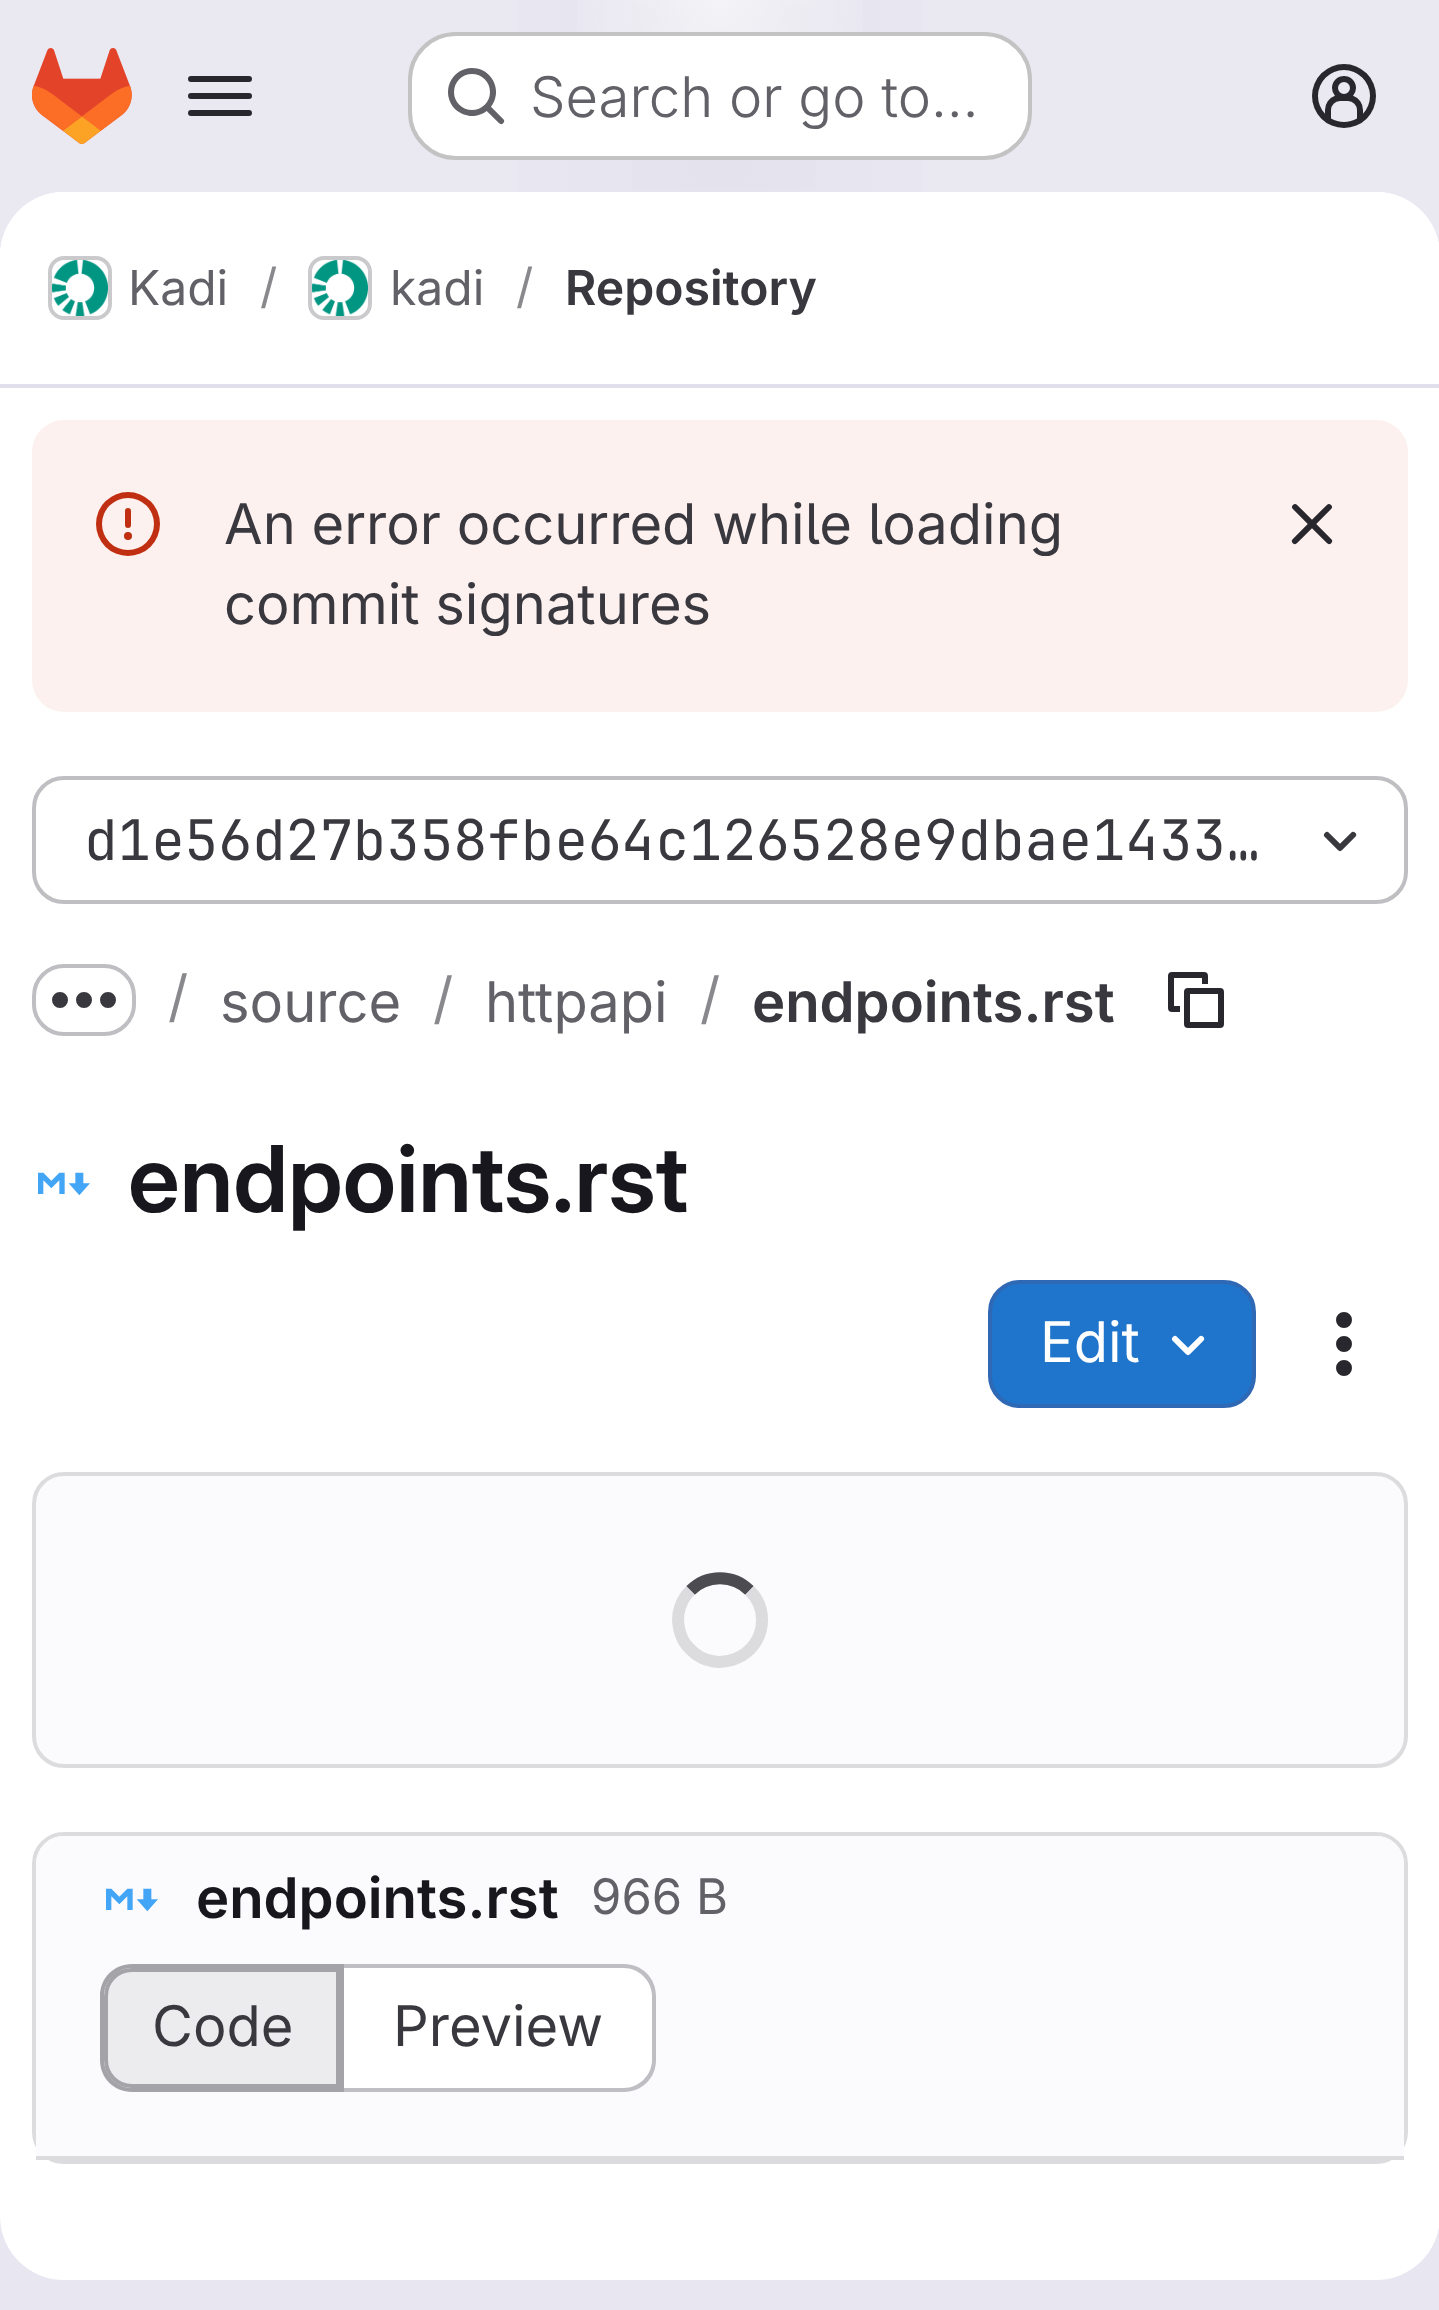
<svg xmlns="http://www.w3.org/2000/svg" width="1439" height="2310">
<style>
.a{font:300 56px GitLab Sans;fill:#626168}
.b{font:48px GitLab Sans;fill:#626168}
.c{font:48px GitLab Sans;fill:#89888d}
.d{font:600 48px 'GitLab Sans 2';fill:#3a383f}
.e{font:56px GitLab Sans;fill:#3a383f}
.f{font:56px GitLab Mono;fill:#3a383f}
.g{font:56px GitLab Sans;fill:#89888d}
.h{font:56px GitLab Sans;fill:#626168}
.i{font:600 56px 'GitLab Sans 2';fill:#3a383f}
.j{font:600 92px GitLab Sans;fill:#18171d}
.k{font:56px GitLab Sans;fill:#fff}
.l{font:600 56px 'GitLab Sans 2';fill:#18171d}
.m{font:49px GitLab Sans;fill:#626168}
</style>
<defs>
<linearGradient id="g1" gradientUnits="userSpaceOnUse" x1="939" y1="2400" x2="501" y2="-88"><stop offset="0" stop-color="#e8e6f0"/><stop offset="0.7" stop-color="#eae9f2"/></linearGradient>
<radialGradient id="g2" gradientUnits="userSpaceOnUse" cx="0" cy="0" r="1" gradientTransform="matrix(720 0 0 2312 720 0)"><stop offset="0" stop-color="#e4e2ed"/><stop offset="0.39" stop-color="#e4e2ed" stop-opacity="0"/></radialGradient>
<radialGradient id="g3" gradientUnits="userSpaceOnUse" cx="0" cy="0" r="1" gradientTransform="matrix(720 0 0 2312 720 0)"><stop offset="0" stop-color="#e4e2ec"/><stop offset="0.28" stop-color="#e4e2ec" stop-opacity="0"/></radialGradient>
<radialGradient id="g4" gradientUnits="userSpaceOnUse" cx="720" cy="0" r="2422"><stop offset="0" stop-color="#fff" stop-opacity="0.6"/><stop offset="0.07" stop-color="#fff" stop-opacity="0"/></radialGradient>
</defs>
<rect width="100%" height="100%" fill="#fff"/>
<path fill="url(#g1)" d="M0 0h1439v2310H0z"/>
<path fill="url(#g2)" d="M517 0h406v192H517z"/>
<path fill="url(#g3)" d="M632 6h183v183H632z"/>
<path fill="url(#g4)" d="M577 0h286v145H577z"/>
<image href="1.png" x="32" y="48" width="100" height="96"/>
<image href="2.png" x="188" y="76" width="64" height="40"/>
<rect fill="#fff" x="408" y="32" width="624" height="128" rx="48"/>
<rect fill="none" stroke="#0505063d" stroke-width="4" x="410" y="34" width="620" height="124" rx="46"/>
<image href="3.png" x="448" y="68" width="57" height="57"/>
<image href="4.png" x="1312" y="64" width="64" height="64"/>
<rect fill="#fff" y="192" width="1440" height="2088" rx="64"/>
<path fill="#fff" d="M64 192h1312c35.5 0 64 28.5 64 64v132h-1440v-132c0-35.5 28.5-64 64-64z"/>
<path fill="#e1dfec" d="M0 384h1439v4H0z"/>
<rect fill="none" stroke="#dcdcde" stroke-width="4" x="50" y="258" width="60" height="60" rx="14"/>
<image href="5.png" x="52" y="260" width="56" height="56"/>
<rect fill="none" stroke="#05050614" stroke-width="4" x="50" y="258" width="60" height="60" rx="14"/>
<rect fill="none" stroke="#dcdcde" stroke-width="4" x="310" y="258" width="60" height="60" rx="14"/>
<image href="6.png" x="312" y="260" width="56" height="56"/>
<rect fill="none" stroke="#05050614" stroke-width="4" x="310" y="258" width="60" height="60" rx="14"/>
<rect fill="#fcf1ef" x="32" y="420" width="1376" height="292" rx="32"/>
<image href="7.png" x="96" y="492" width="64" height="64"/>
<image href="8.png" x="1291" y="504" width="42" height="41"/>
<rect fill="none" stroke="#bfbfc3" stroke-width="4" x="34" y="778" width="1372" height="124" rx="30"/>
<image href="9.png" x="1323" y="831" width="34" height="21"/>
<rect fill="none" stroke="#bfbfc3" stroke-width="4" x="34" y="966" width="100" height="68" rx="30"/>
<image href="10.png" x="52" y="992" width="64" height="16"/>
<image href="11.png" x="1168" y="972" width="56" height="56"/>
<image href="12.png" x="38" y="1172" width="52" height="24"/>
<rect fill="#1f75cb" stroke="#2f68b4" stroke-width="4" x="990" y="1282" width="264" height="124" rx="30"/>
<image href="13.png" x="1171" y="1335" width="34" height="21"/>
<image href="14.png" x="1336" y="1312" width="16" height="64"/>
<rect fill="#fbfafd" stroke="#dcdcde" stroke-width="4" x="34" y="1474" width="1372" height="292" rx="30"/>
<path fill="none" stroke="#4c4b51" stroke-width="12" d="M690.5 1590.5c16-16.5 43-16.5 59 0"/>
<path fill="none" stroke="#dcdcde" stroke-width="12" d="M749.5 1590.5c8 7.5 12.5 18.5 12.5 29.5c0 37-45.5 56-71.5 29.5c-6-5.5-10-13-11.5-21.5c-3-13.5 1.5-28 11.5-37.5"/>
<rect fill="none" stroke="#dcdcde" stroke-width="4" x="34" y="1834" width="1372" height="328" rx="30"/>
<path fill="#fbfafd" d="M64 1836h1312c15.5 0 28 12.5 28 28v296h-1368v-296c0-15.5 12.5-28 28-28z"/>
<path fill="#dcdcde" d="M36 2156h1368v4H36z"/>
<image href="15.png" x="106" y="1888" width="52" height="24"/>
<path fill="#ececef" stroke="#a4a3a8" stroke-width="4" d="M132 1970h206v116h-206c-14.5 0-26-11.5-26-26v-64c0-14.5 11.5-26 26-26z"/>
<path fill="#a4a3a8" fill-rule="evenodd" d="M132 1964h208v128h-208c-18 0-32-14-32-32v-64c0-18 14-32 32-32zm0 4h208v120h-208c-15 0-28-13-28-28v-64c0-15 13-28 28-28z"/>
<path fill="#fff" d="M344 1968h280c15.5 0 28 12.5 28 28v64c0 15.5-12.5 28-28 28h-280z"/>
<path fill="#bfbfc3" fill-rule="evenodd" d="M344 1964h280c18 0 32 14 32 32v64c0 18-14 32-32 32h-280zm0 4h280c15 0 28 13 28 28v64c0 15-13 28-28 28h-280z"/>
<path fill="#a4a3a8" d="M340 1964h4v128H340z"/>
<text class="a" x="530" y="117">Search or go to…</text>
<text class="b" x="128" y="305">Kadi</text>
<text class="c" x="260" y="303">/</text>
<text class="b" x="390" y="305">kadi</text>
<text class="c" x="516" y="303">/</text>
<text class="d" x="565" y="305">Repository</text>
<text class="e" x="224" y="544">An error occurred while loading</text>
<text class="e" x="224" y="624">commit signatures</text>
<text class="f" x="84" y="860">d1e56d27b358fbe64c126528e9dbae1433…</text>
<text class="g" x="168" y="1016">/</text>
<text class="h" x="220" y="1022">source</text>
<text class="g" x="433" y="1018">/</text>
<text class="h" x="485" y="1022">httpapi</text>
<text class="g" x="700" y="1018">/</text>
<text class="i" x="752" y="1022">endpoints.rst</text>
<text class="j" x="128" y="1212">endpoints.rst</text>
<text class="k" x="1040" y="1362">Edit</text>
<text class="l" x="196" y="1918">endpoints.rst</text>
<text class="m" x="591" y="1914">966 B</text>
<text class="e" x="152" y="2046">Code</text>
<text class="e" x="393" y="2046">Preview</text>
</svg>
